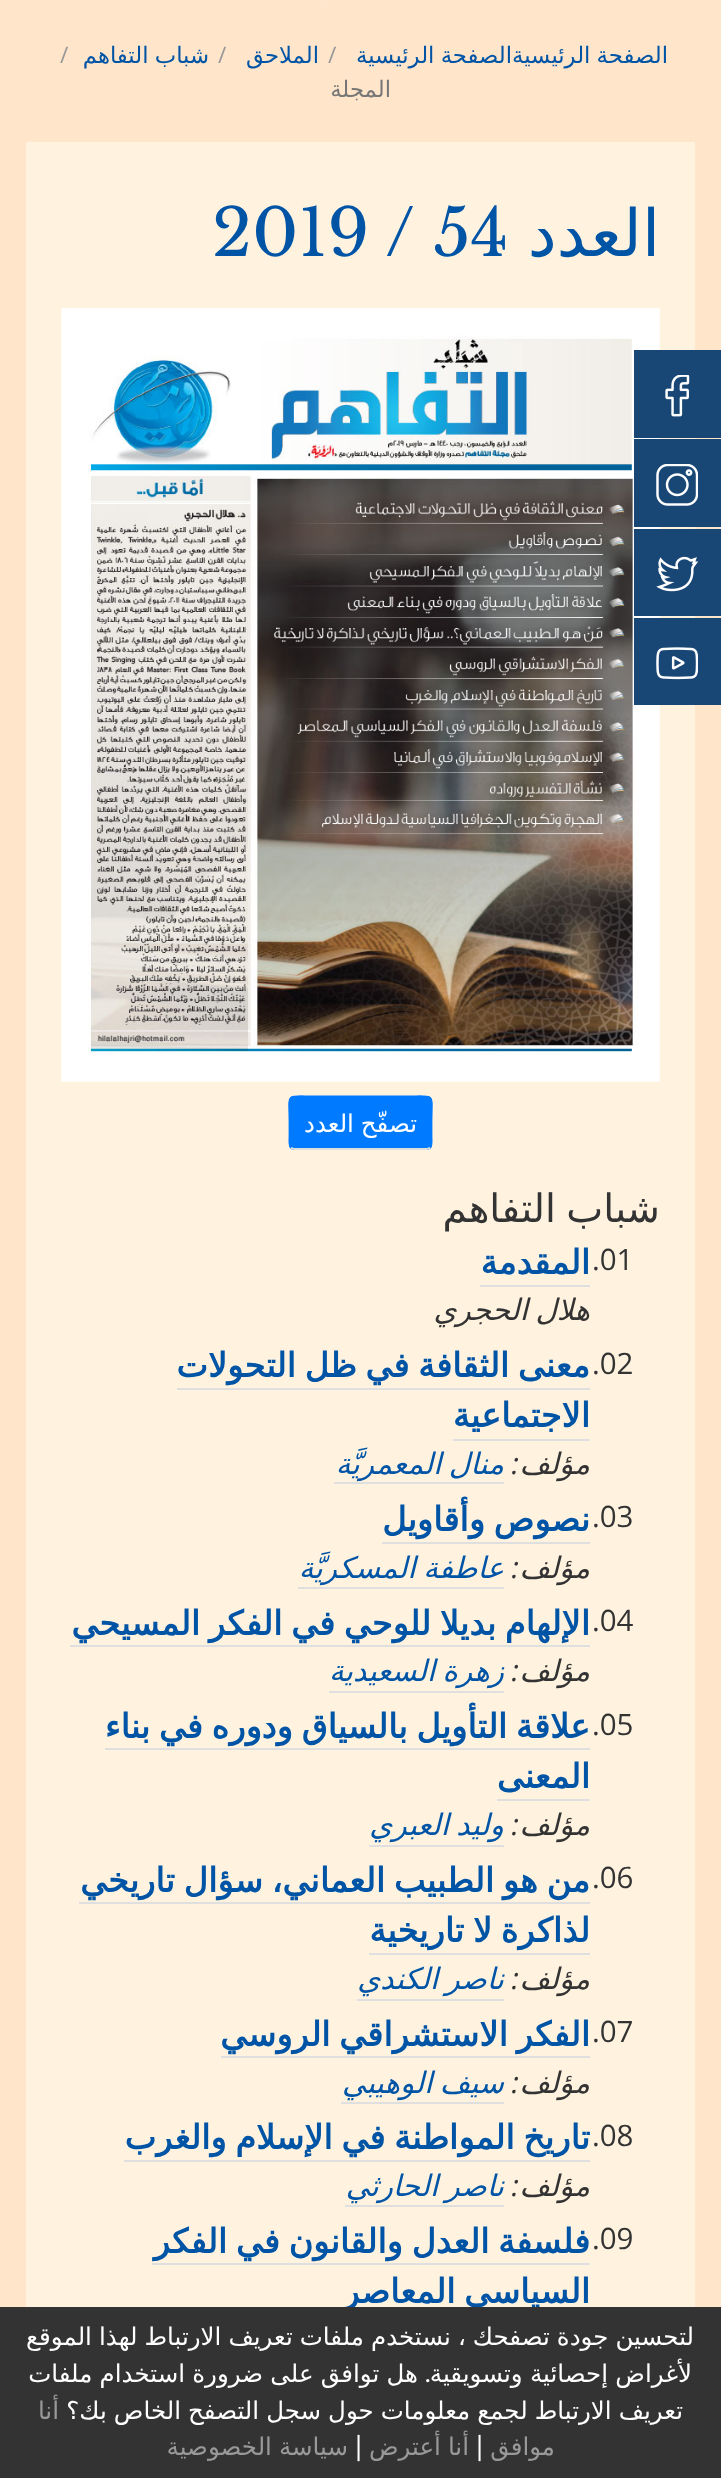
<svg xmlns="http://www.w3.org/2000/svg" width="721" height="2478">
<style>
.a{font:22.75px DejaVu Sans;direction:rtl;fill:#0054a6}
.b{font:22.75px Open Sans;fill:#999}
.c{font:22.75px DejaVu Sans;direction:rtl;fill:#777}
.d{font:65px DejaVu Sans;direction:rtl;fill:#0054a6}
.e{font:65px Libre Baskerville;fill:#0054a6}
.f{font:24.5px DejaVu Sans;direction:rtl;fill:#fff}
.g{font:39.25px DejaVu Sans;direction:rtl;fill:#333}
.h{font:29.5px Open Sans;fill:#333}
.i{font:bold 33.6px DejaVu Sans;direction:rtl;fill:#0054a6}
.j{font:italic 29.5px DejaVu Sans;direction:rtl;fill:#333}
.k{font:italic 29.5px Open Sans;direction:rtl;fill:#333}
.l{font:italic 29.5px DejaVu Sans;direction:rtl;fill:#0054a6}
.m{font:24.5px Libre Baskerville;direction:rtl;fill:#fff}
.n{font:24.5px DejaVu Sans;direction:rtl;fill:#999}
.o{font:24.5px Libre Baskerville;fill:#fff}
</style>
<rect width="100%" height="100%" fill="#ffe5ca"/>
<path fill="#fff3e0" d="M26 142h669v2165H26z"/>
<image href="5.png" x="61" y="308" width="599" height="774"/>
<path fill="#194775" d="M634 350h87v88H634z"/>
<image href="1.png" x="665" y="375" width="25" height="42"/>
<path fill="#194775" d="M634 439h87v88H634z"/>
<image href="2.png" x="656" y="464" width="42" height="42"/>
<path fill="#194775" d="M634 529h87v87H634z"/>
<image href="3.png" x="656" y="556" width="42" height="36"/>
<path fill="#194775" d="M634 618h87v87H634z"/>
<image href="4.png" x="656" y="647" width="42" height="33"/>
<path fill="#ffe8cf" d="M320 0h2v2H320z"/>
<rect fill="#007bff" x="289" y="1096" width="143" height="54" rx="5"/>
<path fill="none" stroke="#dfdfdf" stroke-width="1.8" d="M430 1147.5c-1 1-2 1.5-3.5 1.5h-132c-1.5 0-2.5-.5-3.5-1.5"/>
<path fill="none" stroke="#007bff" stroke-width="1.8" d="M291 1147.5c-2.5-2.5-1.5-8-1.5-10.5v-14.5c0-31-5.5-26 27-26h88c32.5 0 27-5 27 26v14.5c0 2.5 1 8-1.5 10.5"/>
<path fill="#dfdfdf" d="M480 1285h110v2H480z"/>
<path fill="#dfdfdf" d="M177 1388h413v2H177z"/>
<path fill="#dfdfdf" d="M453 1439h137v2H453z"/>
<path fill="#dfdfdf" d="M334 1482h170v2H334z"/>
<path fill="#dfdfdf" d="M382 1542h208v2H382z"/>
<path fill="#dfdfdf" d="M298 1587h206v2H298z"/>
<path fill="#dfdfdf" d="M70 1645h520v2H70z"/>
<path fill="#dfdfdf" d="M329 1691h175v2H329z"/>
<path fill="#dfdfdf" d="M105 1748h485v2H105z"/>
<path fill="#dfdfdf" d="M497 1799h93v2H497z"/>
<path fill="#dfdfdf" d="M369 1845h135v2H369z"/>
<path fill="#dfdfdf" d="M79 1902h511v2H79z"/>
<path fill="#dfdfdf" d="M369 1953h221v2H369z"/>
<path fill="#dfdfdf" d="M357 1999h147v2H357z"/>
<path fill="#dfdfdf" d="M221 2056h369v2H221z"/>
<path fill="#dfdfdf" d="M341 2102h163v2H341z"/>
<path fill="#dfdfdf" d="M124 2160h466v2H124z"/>
<path fill="#dfdfdf" d="M345 2205h159v2H345z"/>
<path fill="#dfdfdf" d="M152 2263h438v2H152z"/>
<text class="a" x="668" y="63" word-spacing="-1">الصفحة الرئيسيةالصفحة الرئيسية</text>
<text class="b" x="328" y="63">/</text>
<text class="a" x="319" y="63">الملاحق</text>
<text class="b" x="218" y="63">/</text>
<text class="a" x="209" y="63" word-spacing="-1">شباب التفاهم</text>
<text class="b" x="60" y="63">/</text>
<text class="c" x="391" y="97">المجلة</text>
<text class="d" x="660" y="256">العدد</text>
<text class="e" x="385" y="256">/ 54</text>
<text class="e" x="212" y="256">2019</text>
<text class="f" x="417" y="1132" word-spacing="-1">تصفّح العدد</text>
<text class="g" x="660" y="1222" word-spacing="-2">شباب التفاهم</text>
<text class="h" x="592" y="1270">.01</text>
<text class="i" x="590" y="1274">المقدمة</text>
<text class="j" x="590" y="1320" word-spacing="-2">هلال الحجري</text>
<text class="i" x="590" y="1377" word-spacing="-2">معنى الثقافة في ظل التحولات</text>
<text class="h" x="592" y="1374">.02</text>
<text class="i" x="590" y="1427">الاجتماعية</text>
<text class="j" x="590" y="1474">مؤلف</text>
<text class="k" x="519" y="1474">:</text>
<text class="l" x="504" y="1474" word-spacing="-2">منال المعمريَّة</text>
<text class="h" x="592" y="1527">.03</text>
<text class="i" x="590" y="1531" word-spacing="-2">نصوص وأقاويل</text>
<text class="j" x="590" y="1578">مؤلف</text>
<text class="k" x="519" y="1578">:</text>
<text class="l" x="504" y="1578" word-spacing="-2">عاطفة المسكريَّة</text>
<text class="i" x="590" y="1635" word-spacing="-2">الإلهام بديلا للوحي في الفكر المسيحي</text>
<text class="h" x="592" y="1631">.04</text>
<text class="j" x="590" y="1681">مؤلف</text>
<text class="k" x="519" y="1681">:</text>
<text class="l" x="504" y="1681" word-spacing="-2">زهرة السعيدية</text>
<text class="i" x="590" y="1738" word-spacing="-2">علاقة التأويل بالسياق ودوره في بناء</text>
<text class="h" x="592" y="1735">.05</text>
<text class="i" x="590" y="1788">المعنى</text>
<text class="j" x="590" y="1835">مؤلف</text>
<text class="k" x="519" y="1835">:</text>
<text class="l" x="504" y="1835" word-spacing="-2">وليد العبري</text>
<text class="i" x="590" y="1892" word-spacing="-2">من هو الطبيب العماني، سؤال تاريخي</text>
<text class="h" x="592" y="1888">.06</text>
<text class="i" x="590" y="1942" word-spacing="-2">لذاكرة لا تاريخية</text>
<text class="j" x="590" y="1989">مؤلف</text>
<text class="k" x="519" y="1989">:</text>
<text class="l" x="504" y="1989" word-spacing="-2">ناصر الكندي</text>
<text class="h" x="592" y="2042">.07</text>
<text class="i" x="590" y="2046" word-spacing="-2">الفكر الاستشراقي الروسي</text>
<text class="j" x="590" y="2093">مؤلف</text>
<text class="k" x="519" y="2093">:</text>
<text class="l" x="504" y="2093" word-spacing="-2">سيف الوهيبي</text>
<text class="i" x="590" y="2149" word-spacing="-2">تاريخ المواطنة في الإسلام والغرب</text>
<text class="h" x="592" y="2146">.08</text>
<text class="j" x="590" y="2196">مؤلف</text>
<text class="k" x="519" y="2196">:</text>
<text class="l" x="504" y="2196" word-spacing="-2">ناصر الحارثي</text>
<text class="i" x="590" y="2253" word-spacing="-2">فلسفة العدل والقانون في الفكر</text>
<text class="h" x="592" y="2249">.09</text>
<text class="i" x="590" y="2303" word-spacing="-2">السياسي المعاصر</text>
<path fill="#333" d="M0 2307h721v171H0z"/>
<text class="f" x="694" y="2345" word-spacing="-0.75">لتحسين جودة تصفحك ، نستخدم ملفات تعريف الارتباط لهذا الموقع</text>
<text class="f" x="692" y="2382" word-spacing="-0.5">لأغراض إحصائية وتسويقية</text>
<text class="m" x="431" y="2382">.</text>
<text class="f" x="418" y="2382" word-spacing="-0.5">هل توافق على ضرورة استخدام ملفات</text>
<text class="f" x="683" y="2419" word-spacing="-0.75">تعريف الارتباط لجمع معلومات حول سجل التصفح الخاص بك؟</text>
<text class="n" x="59" y="2419">أنا</text>
<text class="n" x="555" y="2455">موافق</text>
<text class="o" x="476" y="2455">|</text>
<text class="n" x="469" y="2455" word-spacing="-0.75">أنا أعترض</text>
<text class="o" x="355" y="2455">|</text>
<text class="n" x="348" y="2455" word-spacing="-0.75">سياسة الخصوصية</text>
</svg>
